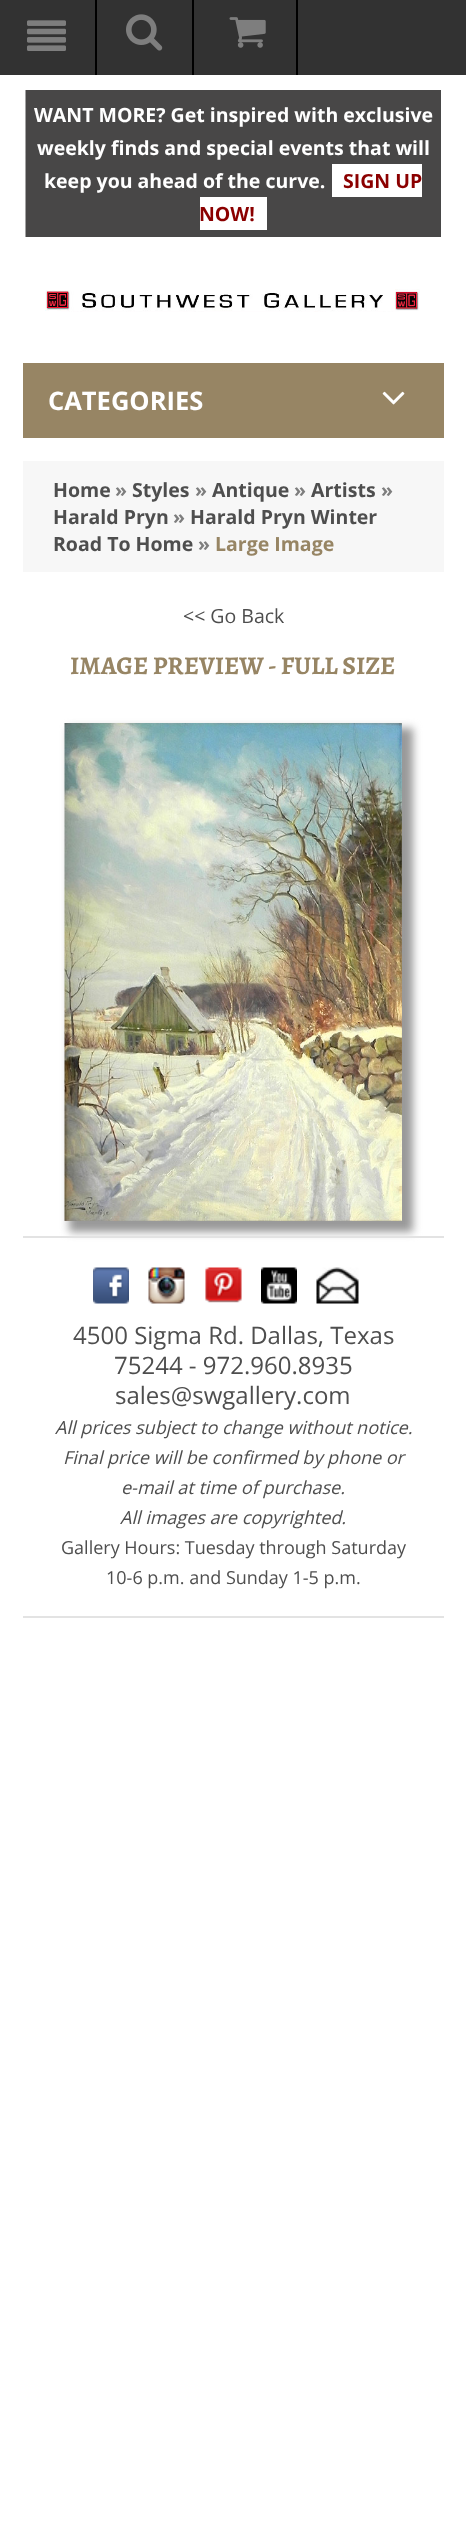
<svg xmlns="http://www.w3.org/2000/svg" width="466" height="2534">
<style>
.a{font:bold 19.5px Open Sans;fill:#fff}
.b{font:bold 19.5px Open Sans;fill:#8b0000}
.c{font:bold 25.5px Open Sans;fill:#fff}
.d{font:bold 19.5px Open Sans;fill:#4e4e4e}
.e{font:bold 19.5px Open Sans;fill:#7e7e7e}
.f{font:bold 19.5px Open Sans;fill:#978564}
.g{font:19.5px Open Sans;fill:#4e4e4e}
.h{font:bold 25.5px Alegreya SC;fill:#978564}
.i{font:24px Open Sans;fill:#4e4e4e}
.j{font:italic 18px Open Sans;fill:#4e4e4e}
.k{font:18px Open Sans;fill:#4e4e4e}
</style>
<rect width="100%" height="100%" fill="#fff"/>
<path fill="#484747" d="M26 90h415v147H26z"/>
<image href="1.png" x="25" y="90" width="1" height="147"/>
<path fill="#fff" d="M332 164h90v33H332z"/>
<path fill="#fff" d="M200 197h67v33H200z"/>
<image href="2.png" x="45" y="289" width="375" height="23"/>
<path fill="#323232" d="M0 0h466v75H0z"/>
<path fill="#000" d="M95 0h2v75H95z"/>
<image href="3.png" x="27" y="20" width="39" height="31"/>
<path fill="#000" d="M192 0h2v75H192z"/>
<image href="4.png" x="126" y="14" width="37" height="37"/>
<path fill="#000" d="M296 0h2v75H296z"/>
<image href="5.png" x="229" y="17" width="37" height="31"/>
<path fill="#978564" d="M23 363h421v75H23z"/>
<image href="6.png" x="382" y="391" width="23" height="14"/>
<path fill="#f7f7f7" d="M23 461h421v111H23z"/>
<path fill="#999" filter="blur(4px)" d="M69 728h344v504H69z"/>
<image href="7.png" x="64" y="723" width="338" height="498"/>
<path fill="#e3e3e3" d="M23 1236h421v2H23z"/>
<path fill="#e3e3e3" d="M23 1616h421v2H23z"/>
<image href="8.png" x="93" y="1267" width="36" height="37"/>
<image href="9.png" x="148" y="1267" width="37" height="37"/>
<image href="10.png" x="205" y="1267" width="37" height="36"/>
<image href="11.png" x="261" y="1267" width="36" height="37"/>
<image href="12.png" x="316" y="1267" width="43" height="37"/>
<text class="a" x="34" y="122">WANT MORE? Get inspired with exclusive</text>
<text class="a" x="37" y="155">weekly finds and special events that will</text>
<text class="a" x="44" y="188">keep you ahead of the curve.</text>
<text class="b" x="343" y="188">SIGN UP</text>
<text class="b" x="199" y="221">NOW!</text>
<text class="c" x="48" y="410">CATEGORIES</text>
<text class="d" x="53" y="497">Home</text>
<text class="e" x="115" y="497">»</text>
<text class="d" x="132" y="497">Styles</text>
<text class="e" x="195" y="497">»</text>
<text class="d" x="212" y="497">Antique</text>
<text class="e" x="294" y="497">»</text>
<text class="d" x="311" y="497">Artists</text>
<text class="e" x="381" y="497">»</text>
<text class="d" x="53" y="524">Harald Pryn</text>
<text class="e" x="173" y="524">»</text>
<text class="d" x="190" y="524">Harald Pryn Winter</text>
<text class="d" x="53" y="551">Road To Home</text>
<text class="e" x="198" y="551">»</text>
<text class="f" x="215" y="551">Large Image</text>
<text class="g" x="183" y="623">&lt;&lt; Go Back</text>
<text class="h" x="70" y="674">IMAGE PREVIEW - FULL SIZE</text>
<text class="i" x="73" y="1344">4500 Sigma Rd. Dallas, Texas</text>
<text class="i" x="114" y="1374">75244 - 972.960.8935</text>
<text class="i" x="115" y="1404">sales@swgallery.com</text>
<text class="j" x="55" y="1434">All prices subject to change without notice.</text>
<text class="j" x="63" y="1464">Final price will be confirmed by phone or</text>
<text class="j" x="121" y="1494">e-mail at time of purchase.</text>
<text class="j" x="120" y="1524">All images are copyrighted.</text>
<text class="k" x="61" y="1554">Gallery Hours: Tuesday through Saturday</text>
<text class="k" x="106" y="1584">10-6 p.m. and Sunday 1-5 p.m.</text>
</svg>
